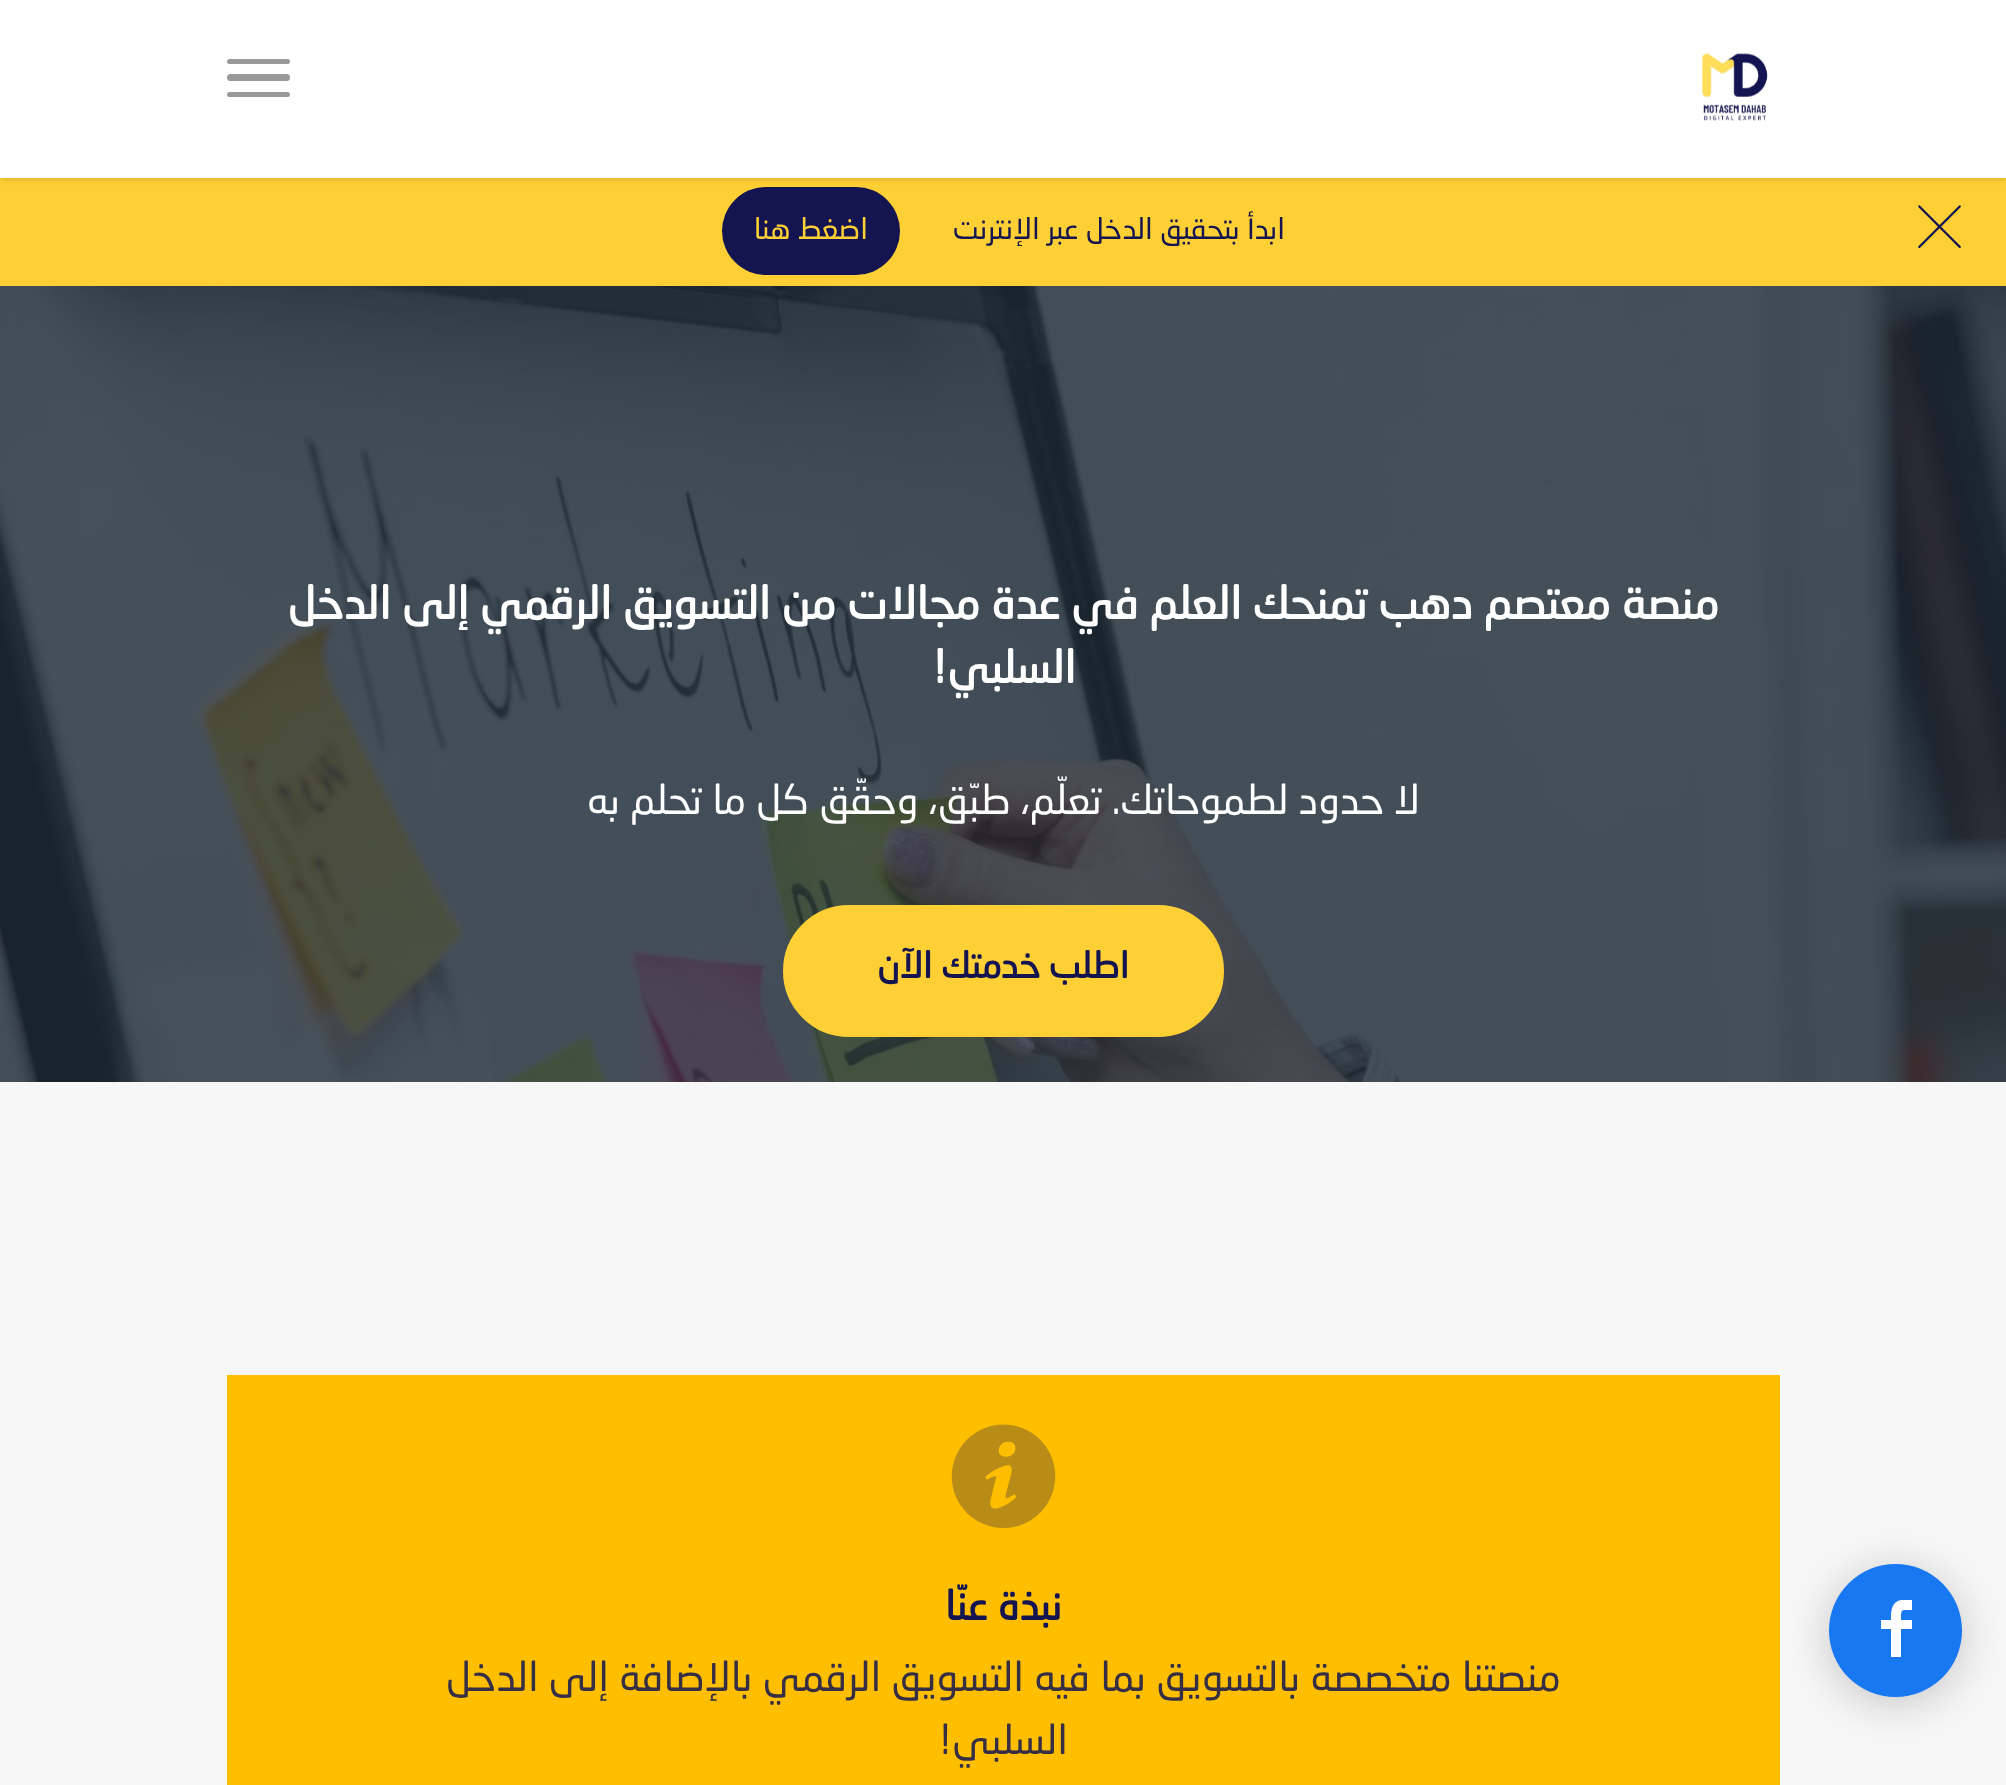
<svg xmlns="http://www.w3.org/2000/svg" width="2006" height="1785">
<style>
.a{font:29.25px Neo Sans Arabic;direction:rtl;fill:#131450}
.b{font:29.25px Neo Sans Arabic;direction:rtl;fill:#ffd035}
.c{font:bold 45px Neo Sans Arabic;direction:rtl;fill:#fff}
.d{font:40.5px Neo Sans Arabic;direction:rtl;fill:#fff}
.e{font:bold 36px Neo Sans Arabic;direction:rtl;fill:#131450}
.f{font:bold 40.5px Neo Sans Arabic;direction:rtl;fill:#131450}
.g{font:40.5px Neo Sans Arabic;direction:rtl;fill:#362e44}
</style>
<rect width="100%" height="100%" fill="#1e2c38"/>
<path fill="#ffd035" d="M0 178h2006v108H0z"/>
<rect fill="#131450" x="722" y="187" width="178" height="88" rx="44"/>
<path fill="#00000038" filter="blur(3.5px)" d="M0 -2h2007v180H0z"/>
<path fill="#fff" d="M0 0h2006v178H0z"/>
<image href="1.png" x="1702" y="53" width="66" height="68"/>
<rect fill="#999" x="227" y="92" width="63" height="5" rx="2.5"/>
<rect fill="#999" x="227" y="59" width="63" height="5" rx="2.5"/>
<rect fill="#999" x="227" y="74" width="63" height="7" rx="3.5"/>
<image href="2.png" x="1918" y="205" width="43" height="43"/>
<path fill="#f7f7f7" d="M0 1082h2006v703H0z"/>
<path fill="#ffbf00" d="M227 1375h1553v410H227z"/>
<rect fill="#00000033" filter="blur(22.5px)" x="1829" y="1571" width="133" height="132" rx="66"/>
<circle fill="#1778f2" cx="1895.5" cy="1630.5" r="66.5"/>
<path fill="#fff" d="M1912 1610c-11 0-11-2-11 10h11v9h-11v28h-10v-28h-10v-9h10c0-8 0-18 10-20h11z"/>
<image href="3.png" x="0" y="286" width="2006" height="796"/>
<rect fill="#ffd035" stroke="#ffd035" stroke-width="5" x="785.5" y="907.5" width="436" height="127" rx="63.5"/>
<image href="4.png" x="951" y="1424" width="105" height="104"/>
<text class="a" x="1285" y="239">ابدأ بتحقيق الدخل عبر الإنترنت</text>
<text class="b" x="868" y="239">اضغط هنا</text>
<text class="c" x="1719" y="619">منصة معتصم دهب تمنحك العلم في عدة مجالات من التسويق الرقمي إلى الدخل</text>
<text class="c" x="1076" y="683">السلبي!</text>
<text class="d" x="1420" y="814">لا حدود لطموحاتك. تعلّم، طبّق، وحقّق كل ما تحلم به</text>
<text class="e" x="1129" y="978">اطلب خدمتك الآن</text>
<text class="f" x="1062" y="1620">نبذة عنّا</text>
<text class="g" x="1561" y="1691">منصتنا متخصصة بالتسويق بما فيه التسويق الرقمي بالإضافة إلى الدخل</text>
<text class="g" x="1068" y="1754">السلبي!</text>
</svg>
